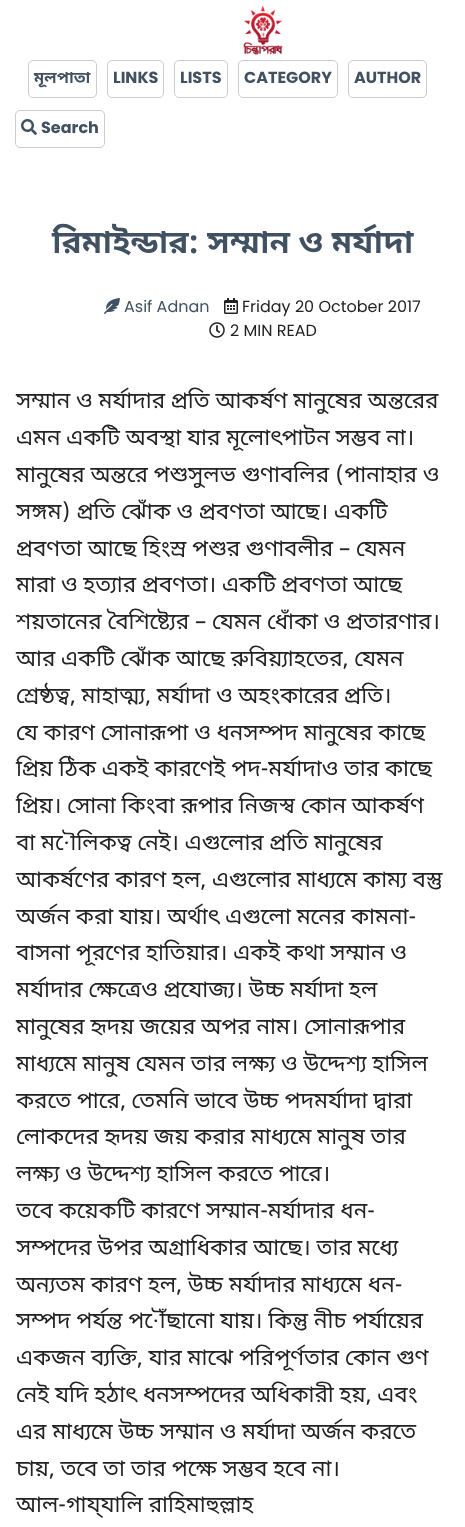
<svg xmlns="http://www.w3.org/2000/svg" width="465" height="1527">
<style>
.a{font:bold 16px Noto Sans Bengali;fill:#415161}
.b{font:bold 16px Poppins;fill:#415161}
.c{font:bold 32px Noto Sans Bengali;fill:#415161}
.d{font:16px Poppins;fill:#415161}
.e{font:16px Poppins;fill:#222}
.f{font:22.4px Noto Sans Bengali;fill:#222}
</style>
<rect width="100%" height="100%" fill="#fff"/>
<image href="1.png" x="243" y="5" width="40" height="50"/>
<rect fill="none" stroke="#ccc" x="28.5" y="60.5" width="68" height="37" rx="4.5"/>
<rect fill="none" stroke="#ccc" x="107.5" y="60.5" width="56" height="37" rx="4.5"/>
<rect fill="none" stroke="#ccc" x="174.5" y="60.5" width="53" height="37" rx="4.5"/>
<rect fill="none" stroke="#ccc" x="238.5" y="60.5" width="99" height="37" rx="4.5"/>
<rect fill="none" stroke="#ccc" x="348.5" y="60.5" width="78" height="37" rx="4.5"/>
<rect fill="none" stroke="#ccc" x="15.5" y="110.5" width="89" height="37" rx="4.5"/>
<image href="2.png" x="21" y="119" width="16" height="16"/>
<image href="3.png" x="104" y="298" width="16" height="16"/>
<image href="4.png" x="224" y="298" width="14" height="16"/>
<image href="5.png" x="209" y="322" width="16" height="16"/>
<text class="a" x="34" y="83">মূলপাতা</text>
<text class="b" x="113" y="83">LINKS</text>
<text class="b" x="180" y="83">LISTS</text>
<text class="b" x="244" y="83">CATEGORY</text>
<text class="b" x="354" y="83">AUTHOR</text>
<text class="b" x="41" y="133">Search</text>
<text class="c" x="52" y="253">রিমাইন্ডার: সম্মান ও মর্যাদা</text>
<text class="d" x="124" y="312">Asif Adnan</text>
<text class="e" x="242" y="312">Friday 20 October 2017</text>
<text class="e" x="230" y="336">2 MIN READ</text>
<text class="f" x="16" y="408">সম্মান ও মর্যাদার প্রতি আকর্ষণ মানুষের অন্তরের</text>
<text class="f" x="16" y="445">এমন একটি অবস্থা যার মূলোৎপাটন সম্ভব না।</text>
<text class="f" x="16" y="482">মানুষের অন্তরে পশুসুলভ গুণাবলির (পানাহার ও</text>
<text class="f" x="16" y="519">সঙ্গম) প্রতি ঝোঁক ও প্রবণতা আছে। একটি</text>
<text class="f" x="16" y="556">প্রবণতা আছে হিংস্র পশুর গুণাবলীর – যেমন</text>
<text class="f" x="16" y="592">মারা ও হত্যার প্রবণতা। একটি প্রবণতা আছে</text>
<text class="f" x="16" y="629">শয়তানের বৈশিষ্ট্যের – যেমন ধোঁকা ও প্রতারণার।</text>
<text class="f" x="16" y="666">আর একটি ঝোঁক আছে রুবিয়্যাহতের, যেমন</text>
<text class="f" x="16" y="703">শ্রেষ্ঠত্ব, মাহাত্ম্য, মর্যাদা ও অহংকারের প্রতি।</text>
<text class="f" x="16" y="740">যে কারণ সোনারূপা ও ধনসম্পদ মানুষের কাছে</text>
<text class="f" x="16" y="776">প্রিয় ঠিক একই কারণেই পদ-মর্যাদাও তার কাছে</text>
<text class="f" x="16" y="813">প্রিয়। সোনা কিংবা রূপার নিজস্ব কোন আকর্ষণ</text>
<text class="f" x="16" y="850">বা মৌলিকত্ব নেই। এগুলোর প্রতি মানুষের</text>
<text class="f" x="16" y="887">আকর্ষণের কারণ হল, এগুলোর মাধ্যমে কাম্য বস্তু</text>
<text class="f" x="16" y="924">অর্জন করা যায়। অর্থাৎ এগুলো মনের কামনা-</text>
<text class="f" x="16" y="960">বাসনা পূরণের হাতিয়ার। একই কথা সম্মান ও</text>
<text class="f" x="16" y="997">মর্যাদার ক্ষেত্রেও প্রযোজ্য। উচ্চ মর্যাদা হল</text>
<text class="f" x="16" y="1034">মানুষের হৃদয় জয়ের অপর নাম। সোনারূপার</text>
<text class="f" x="16" y="1071">মাধ্যমে মানুষ যেমন তার লক্ষ্য ও উদ্দেশ্য হাসিল</text>
<text class="f" x="16" y="1108">করতে পারে, তেমনি ভাবে উচ্চ পদমর্যাদা দ্বারা</text>
<text class="f" x="16" y="1144">লোকদের হৃদয় জয় করার মাধ্যমে মানুষ তার</text>
<text class="f" x="16" y="1181">লক্ষ্য ও উদ্দেশ্য হাসিল করতে পারে।</text>
<text class="f" x="16" y="1218">তবে কয়েকটি কারণে সম্মান-মর্যাদার ধন-</text>
<text class="f" x="16" y="1255">সম্পদের উপর অগ্রাধিকার আছে। তার মধ্যে</text>
<text class="f" x="16" y="1292">অন্যতম কারণ হল, উচ্চ মর্যাদার মাধ্যমে ধন-</text>
<text class="f" x="16" y="1328">সম্পদ পর্যন্ত পৌঁছানো যায়। কিন্তু নীচ পর্যায়ের</text>
<text class="f" x="16" y="1365">একজন ব্যক্তি, যার মাঝে পরিপূর্ণতার কোন গুণ</text>
<text class="f" x="16" y="1402">নেই যদি হঠাৎ ধনসম্পদের অধিকারী হয়, এবং</text>
<text class="f" x="16" y="1439">এর মাধ্যমে উচ্চ সম্মান ও মর্যাদা অর্জন করতে</text>
<text class="f" x="16" y="1476">চায়, তবে তা তার পক্ষে সম্ভব হবে না।</text>
<text class="f" x="16" y="1512">আল-গায্‌যালি রাহিমাহুল্লাহ</text>
</svg>
